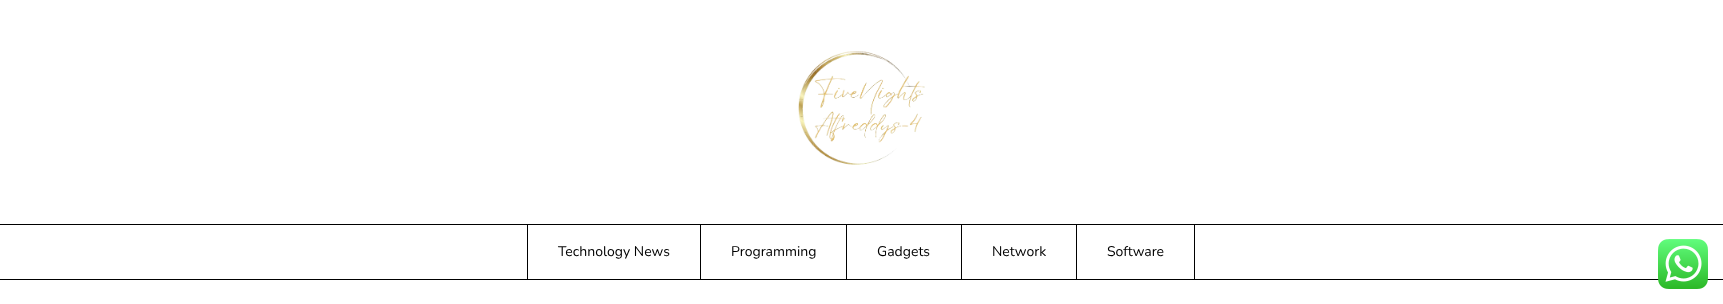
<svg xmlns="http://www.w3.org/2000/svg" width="1723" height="304">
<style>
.a{font:14px Nunito;fill:#000}
</style>
<rect width="100%" height="100%" fill="#fff"/>
<path fill="#000" d="M0 279h1723v1H0z"/>
<image href="1.png" x="798" y="51" width="127" height="114"/>
<path fill="#000" d="M0 224h1723v1H0z"/>
<path fill="none" stroke="#000" d="M527.5 224.5h173v55H527.5z"/>
<path fill="none" stroke="#000" d="M700.5 224.5h146v55H700.5z"/>
<path fill="none" stroke="#000" d="M846.5 224.5h115v55H846.5z"/>
<path fill="none" stroke="#000" d="M961.5 224.5h115v55H961.5z"/>
<path fill="none" stroke="#000" d="M1076.5 224.5h118v55H1076.5z"/>
<image href="2.png" x="1658" y="239" width="50" height="50"/>
<text class="a" x="558" y="256">Technology News</text>
<text class="a" x="731" y="256">Programming</text>
<text class="a" x="877" y="256">Gadgets</text>
<text class="a" x="992" y="256">Network</text>
<text class="a" x="1107" y="256">Software</text>
</svg>
